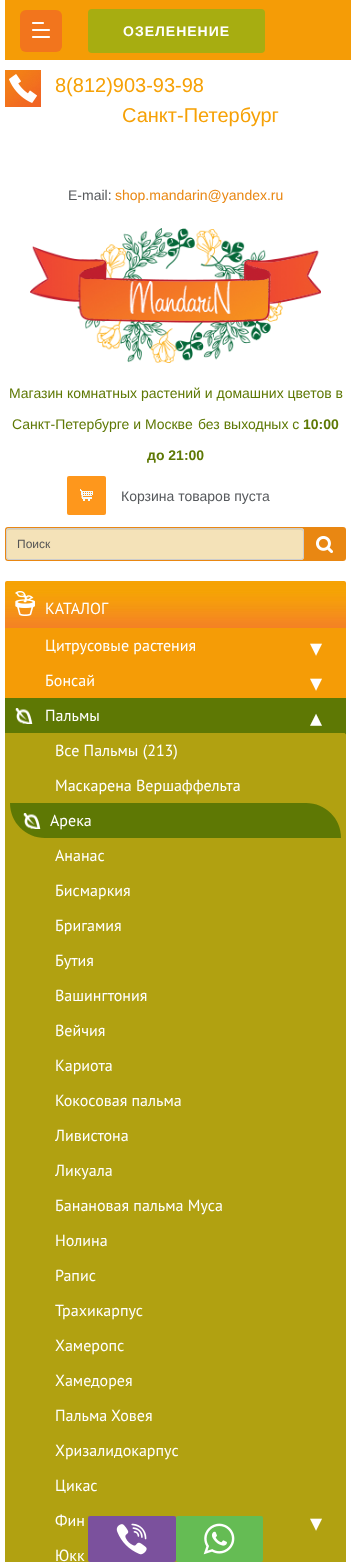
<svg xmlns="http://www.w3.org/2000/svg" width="351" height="1562">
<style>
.a{font:bold 14px Liberation Sans;letter-spacing:1px;fill:#fff}
.b{font:20px Liberation Sans;fill:#f6a106}
.c{font:14px Liberation Sans;fill:#56595c}
.d{font:14px Liberation Sans;fill:#e98712}
.e{font:14px Liberation Sans;fill:#5e7804}
.f{font:bold 14px Liberation Sans;fill:#5e7804}
.g{font:12px Liberation Sans;fill:#555}
.h{font:16px PT Sans;fill:#fff}
.i{font:24px DejaVu Sans;fill:#fff}
</style>
<rect width="100%" height="100%" fill="#fff"/>
<path fill="#f59c06" d="M5 0h346v60H5z"/>
<rect fill="#f2751d" x="20" y="10" width="42" height="42" rx="6"/>
<path fill="none" stroke="#fff" stroke-width="2.2" stroke-linecap="round" d="M33 23h10m-10 7h16m-16 7h16"/>
<rect fill="#a7ad11" x="88" y="9" width="177" height="44" rx="4"/>
<image href="1.png" x="5" y="70" width="36" height="37"/>
<rect fill="#f59c06" x="5" y="581" width="341" height="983" rx="2"/>
<path fill="#5e7804" d="M5 698h341v37H5z"/>
<path fill="#b1a111" d="M5 733h339c1 0 2 1 2 2v827c0 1-1 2-2 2h-339z"/>
<rect fill="#7b519d" x="88" y="1516" width="88" height="46" rx="2"/>
<image href="2.png" x="116" y="1523" width="31" height="32"/>
<rect fill="#65bc54" x="176" y="1516" width="87" height="46" rx="2"/>
<image href="3.png" x="203" y="1523" width="32" height="32"/>
<image href="4.png" x="30" y="228" width="291" height="135"/>
<image href="5.png" x="67" y="476" width="39" height="39"/>
<rect fill="#e98712" x="5" y="527" width="341" height="34" rx="3"/>
<rect fill="#f4e2b8" x="6" y="528" width="298" height="32" rx="3"/>
<path fill="#e2d1aa" d="M9 530h292c1 0 2 1 2 2c0-1 0-3-2-3h-293l-1 3c0-1 1-2 2-2z"/>
<rect fill="none" stroke="#ccc" x="6.5" y="528.5" width="297" height="31" rx="2.5"/>
<image href="6.png" x="316" y="536" width="17" height="17"/>
<image href="7.png" x="5" y="581" width="341" height="47"/>
<image href="8.png" x="15" y="591" width="20" height="25"/>
<image href="9.png" x="15" y="708" width="18" height="16"/>
<path fill="#b1a111" d="M8 733h335c1.5 0 3 1.5 3 3v32h-341v-32c0-1.5 1.5-3 3-3z"/>
<path fill="#5e7804" d="M10 803h296c19.5 0 35 15.5 35 35h-296c-19.5 0-35-15.5-35-35z"/>
<image href="9.png" x="23" y="813" width="18" height="16"/>
<text class="a" x="123" y="36">ОЗЕЛЕНЕНИЕ</text>
<text class="b" x="55" y="92">8(812)903-93-98</text>
<text class="b" x="122" y="122">Санкт-Петербург</text>
<text class="c" x="68" y="200">E-mail:</text>
<text class="d" x="115" y="200">shop.mandarin@yandex.ru</text>
<text class="e" x="9" y="398">Магазин комнатных растений и домашних цветов в</text>
<text class="e" x="12" y="429">Санкт-Петербурге и Москве</text>
<text class="e" x="198" y="429">без выходных с</text>
<text class="f" x="303" y="429">10:00</text>
<text class="f" x="147" y="460">до 21:00</text>
<text class="c" x="121" y="501">Корзина товаров пуста</text>
<text class="g" x="17" y="548">Поиск</text>
<text class="h" x="45" y="614">КАТАЛОГ</text>
<text class="h" x="45" y="651">Цитрусовые растения</text>
<text class="i" x="310" y="656">▾</text>
<text class="h" x="45" y="686">Бонсай</text>
<text class="i" x="310" y="691">▾</text>
<text class="h" x="45" y="721">Пальмы</text>
<text class="i" x="310" y="726">▴</text>
<text class="h" x="55" y="756">Все Пальмы (213)</text>
<text class="h" x="55" y="791">Маскарена Вершаффельта</text>
<text class="h" x="50" y="826">Арека</text>
<text class="h" x="55" y="861">Ананас</text>
<text class="h" x="55" y="896">Бисмаркия</text>
<text class="h" x="55" y="931">Бригамия</text>
<text class="h" x="55" y="966">Бутия</text>
<text class="h" x="55" y="1001">Вашингтония</text>
<text class="h" x="55" y="1036">Вейчия</text>
<text class="h" x="55" y="1071">Кариота</text>
<text class="h" x="55" y="1106">Кокосовая пальма</text>
<text class="h" x="55" y="1141">Ливистона</text>
<text class="h" x="55" y="1176">Ликуала</text>
<text class="h" x="55" y="1211">Банановая пальма Муса</text>
<text class="h" x="55" y="1246">Нолина</text>
<text class="h" x="55" y="1281">Рапис</text>
<text class="h" x="55" y="1316">Трахикарпус</text>
<text class="h" x="55" y="1351">Хамеропс</text>
<text class="h" x="55" y="1386">Хамедорея</text>
<text class="h" x="55" y="1421">Пальма Ховея</text>
<text class="h" x="55" y="1456">Хризалидокарпус</text>
<text class="h" x="55" y="1491">Цикас</text>
<text class="h" x="55" y="1526">Фин</text>
<text class="i" x="310" y="1531">▾</text>
<text class="h" x="55" y="1561">Юкк</text>
</svg>
